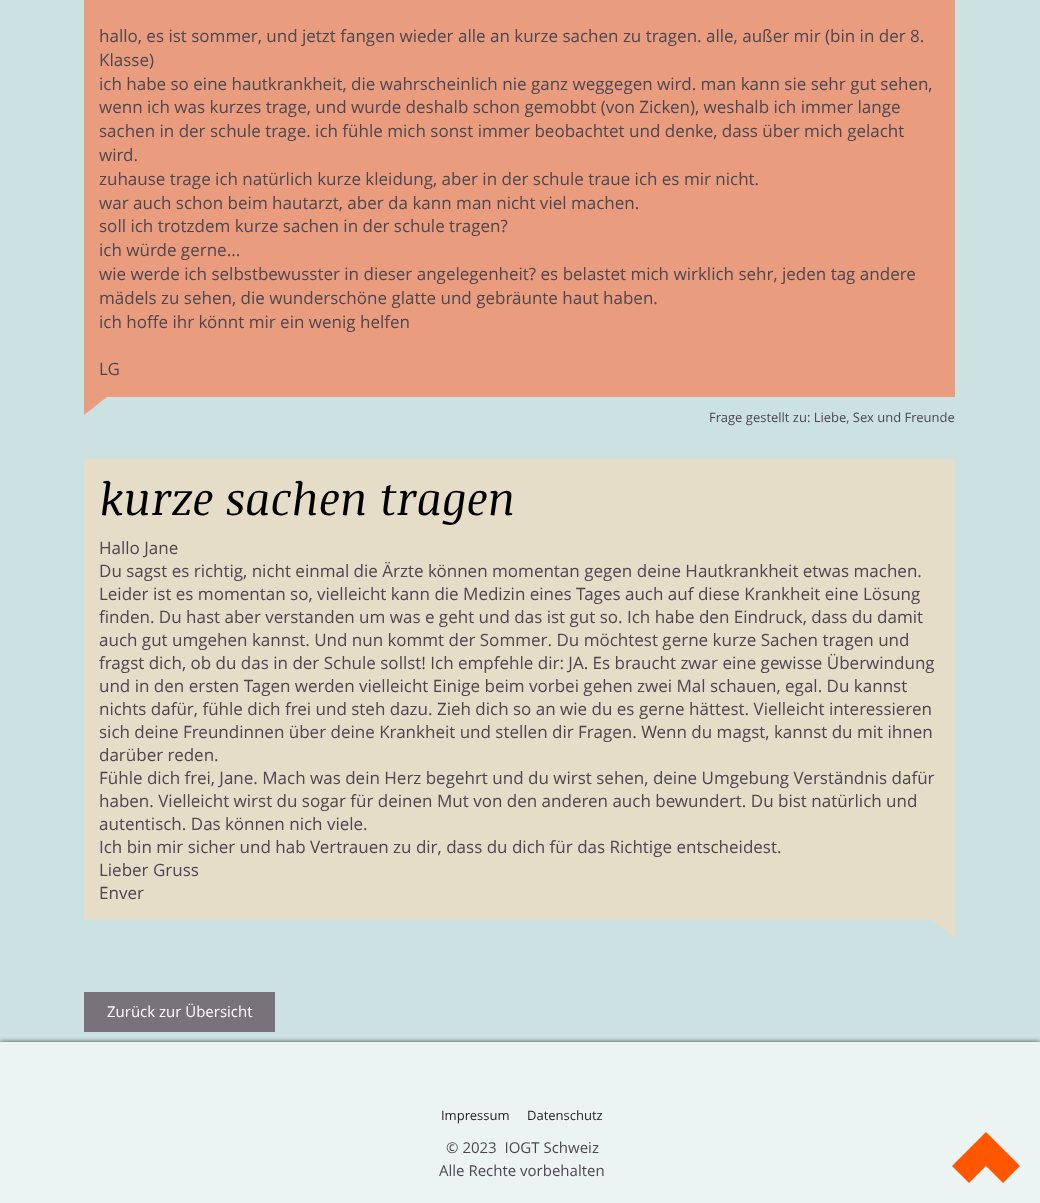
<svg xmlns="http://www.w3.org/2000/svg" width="1040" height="1203">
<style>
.a{font:17px Open Sans;fill:#4e464f}
.b{font:13px Open Sans;fill:#4e464f}
.c{font:italic 45px Noticia Text;fill:#000}
.d{font:15px Open Sans;fill:#fff}
.e{font:13px Open Sans;fill:#221b23}
.f{font:15px Open Sans;fill:#4e464f}
</style>
<rect width="100%" height="100%" fill="#cce2e2"/>
<path fill="#ea9d7e" d="M84 0h871v397H84z"/>
<path fill="#ea9d7e" d="M84 397h23l-23 18z"/>
<path fill="#e5ddc8" d="M84 459h871v461H84z"/>
<path fill="#e5ddc8" d="M932 920h23v18z"/>
<path fill="#7a727b" d="M84 992h191v40H84z"/>
<path fill="#000000b3" filter="blur(2.5px)" d="M0 1042h1040v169H0z"/>
<path fill="#ebf3f3" d="M0 1042h1040v161H0z"/>
<path fill="#ff5700" d="M969 1149l-17 17l17 17l17-17l17 17l17-17l-34-34z"/>
<text class="a" x="99" y="42">hallo, es ist sommer, und jetzt fangen wieder alle an kurze sachen zu tragen. alle, außer mir (bin in der 8.</text>
<text class="a" x="99" y="66">Klasse)</text>
<text class="a" x="99" y="90">ich habe so eine hautkrankheit, die wahrscheinlich nie ganz weggegen wird. man kann sie sehr gut sehen,</text>
<text class="a" x="99" y="113">wenn ich was kurzes trage, und wurde deshalb schon gemobbt (von Zicken), weshalb ich immer lange</text>
<text class="a" x="99" y="137">sachen in der schule trage. ich fühle mich sonst immer beobachtet und denke, dass über mich gelacht</text>
<text class="a" x="99" y="161">wird.</text>
<text class="a" x="99" y="185">zuhause trage ich natürlich kurze kleidung, aber in der schule traue ich es mir nicht.</text>
<text class="a" x="99" y="209">war auch schon beim hautarzt, aber da kann man nicht viel machen.</text>
<text class="a" x="99" y="232">soll ich trotzdem kurze sachen in der schule tragen?</text>
<text class="a" x="99" y="256">ich würde gerne...</text>
<text class="a" x="99" y="280">wie werde ich selbstbewusster in dieser angelegenheit? es belastet mich wirklich sehr, jeden tag andere</text>
<text class="a" x="99" y="304">mädels zu sehen, die wunderschöne glatte und gebräunte haut haben.</text>
<text class="a" x="99" y="328">ich hoffe ihr könnt mir ein wenig helfen</text>
<text class="a" x="99" y="375">LG</text>
<text class="b" x="709" y="422">Frage gestellt zu: Liebe, Sex und Freunde</text>
<text class="c" x="99" y="515">kurze sachen tragen</text>
<text class="a" x="99" y="554">Hallo Jane</text>
<text class="a" x="99" y="577">Du sagst es richtig, nicht einmal die Ärzte können momentan gegen deine Hautkrankheit etwas machen.</text>
<text class="a" x="99" y="600">Leider ist es momentan so, vielleicht kann die Medizin eines Tages auch auf diese Krankheit eine Lösung</text>
<text class="a" x="99" y="623">finden. Du hast aber verstanden um was e geht und das ist gut so. Ich habe den Eindruck, dass du damit</text>
<text class="a" x="99" y="646">auch gut umgehen kannst. Und nun kommt der Sommer. Du möchtest gerne kurze Sachen tragen und</text>
<text class="a" x="99" y="669">fragst dich, ob du das in der Schule sollst! Ich empfehle dir: JA. Es braucht zwar eine gewisse Überwindung</text>
<text class="a" x="99" y="692">und in den ersten Tagen werden vielleicht Einige beim vorbei gehen zwei Mal schauen, egal. Du kannst</text>
<text class="a" x="99" y="715">nichts dafür, fühle dich frei und steh dazu. Zieh dich so an wie du es gerne hättest. Vielleicht interessieren</text>
<text class="a" x="99" y="738">sich deine Freundinnen über deine Krankheit und stellen dir Fragen. Wenn du magst, kannst du mit ihnen</text>
<text class="a" x="99" y="761">darüber reden.</text>
<text class="a" x="99" y="784">Fühle dich frei, Jane. Mach was dein Herz begehrt und du wirst sehen, deine Umgebung Verständnis dafür</text>
<text class="a" x="99" y="807">haben. Vielleicht wirst du sogar für deinen Mut von den anderen auch bewundert. Du bist natürlich und</text>
<text class="a" x="99" y="830">autentisch. Das können nich viele.</text>
<text class="a" x="99" y="853">Ich bin mir sicher und hab Vertrauen zu dir, dass du dich für das Richtige entscheidest.</text>
<text class="a" x="99" y="876">Lieber Gruss</text>
<text class="a" x="99" y="899">Enver</text>
<text class="d" x="107" y="1017">Zurück zur Übersicht</text>
<text class="e" x="441" y="1120">Impressum</text>
<text class="e" x="527" y="1120">Datenschutz</text>
<text class="f" xml:space="preserve" x="446" y="1153">© 2023  IOGT Schweiz</text>
<text class="f" x="439" y="1176">Alle Rechte vorbehalten</text>
</svg>
